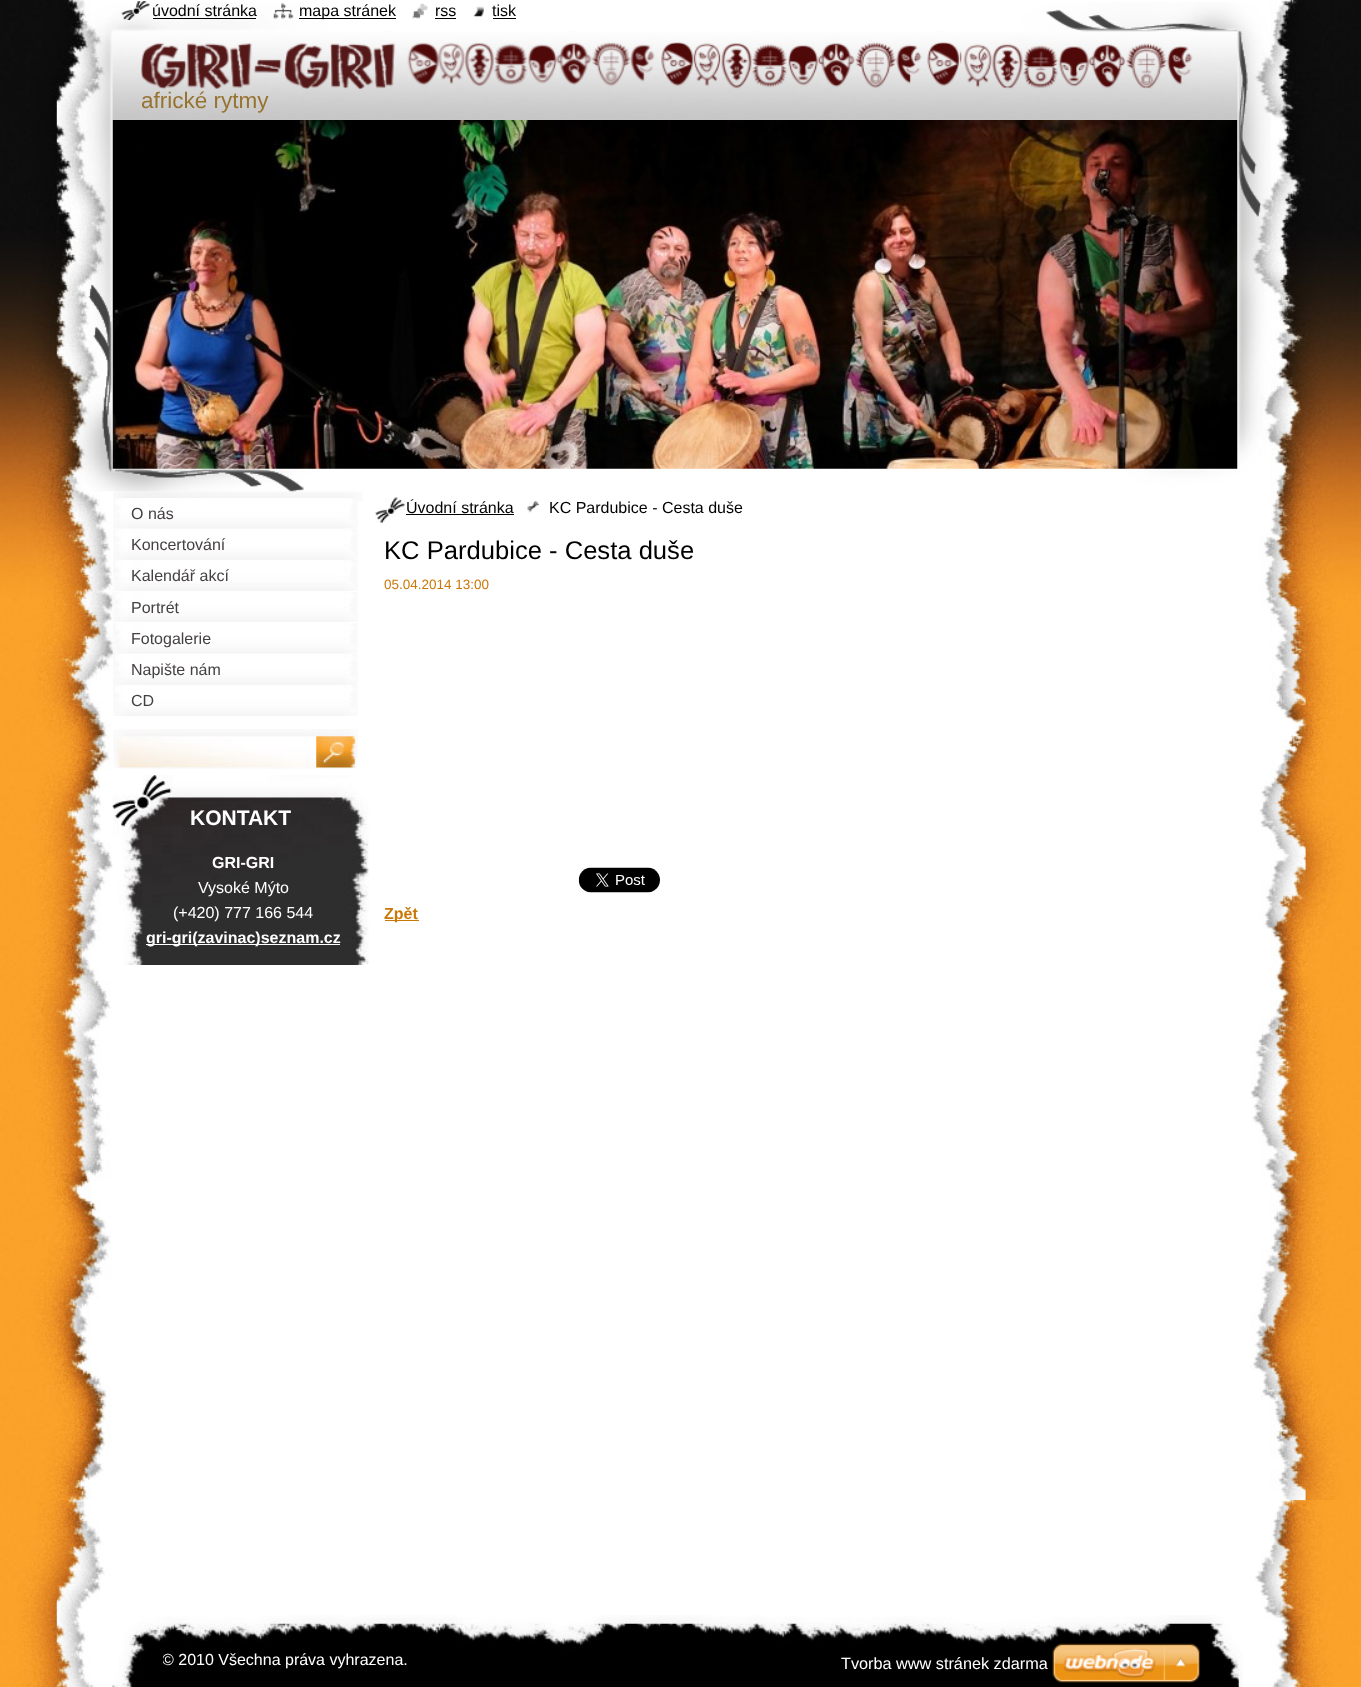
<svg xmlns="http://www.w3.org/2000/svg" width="1361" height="1687">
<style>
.a{font:16px Liberation Sans;fill:#000}
.b{font:22.5px Liberation Sans;fill:#977330}
.c{font:16px Liberation Sans;fill:#454143}
.d{font:bold 21px Liberation Sans;fill:#fff}
.e{font:bold 16px Liberation Sans;fill:#fff}
.f{font:16px Liberation Sans;fill:#fff}
.g{font:25.6px Liberation Sans;fill:#000}
.h{font:13.5px Liberation Sans;fill:#ca7808}
.i{font:bold 16px Liberation Sans;fill:#ca7808}
.j{font:16.25px Liberation Sans;fill:#fff}
</style>
<defs>
<clipPath id="clip1"><path d="M163 1650h525v25H163z"/></clipPath>
</defs>
<rect width="100%" height="100%" fill="#fff"/>
<image href="1.png" x="0" y="1500" width="1361" height="187"/>
<image href="2.png" x="0" y="0" width="1361" height="1500"/>
<image href="10.png" x="113" y="491" width="250" height="11"/>
<image href="7.png" x="75" y="2" width="1196" height="490"/>
<image href="3.png" x="121" y="1" width="29" height="19"/>
<path fill="#000" d="M153 18h103v1H153z"/>
<image href="4.png" x="273" y="2" width="21" height="17"/>
<path fill="#000" d="M299 18h97v1H299z"/>
<image href="5.png" x="412" y="3" width="16" height="16"/>
<path fill="#000" d="M435 18h21v1H435z"/>
<image href="6.png" x="473" y="6" width="11" height="11"/>
<path fill="#000" d="M493 18h23v1H493z"/>
<image href="8.png" x="141" y="42" width="1052" height="47"/>
<image href="9.png" x="112" y="120" width="1126" height="349"/>
<image href="11.png" x="113" y="498" width="245" height="31"/>
<image href="12.png" x="113" y="529" width="245" height="31"/>
<image href="13.png" x="113" y="560" width="245" height="31"/>
<image href="14.png" x="112" y="592" width="246" height="30"/>
<image href="15.png" x="112" y="623" width="246" height="31"/>
<image href="16.png" x="112" y="654" width="246" height="31"/>
<image href="13.png" x="113" y="685" width="245" height="31"/>
<image href="17.png" x="113" y="729" width="203" height="40"/>
<image href="18.png" x="316" y="729" width="42" height="40"/>
<image href="19.png" x="112" y="775" width="257" height="190"/>
<path fill="#fff" d="M146 944h194v1H146z"/>
<image href="20.png" x="375" y="497" width="30" height="26"/>
<path fill="#000" d="M406 514h108v1H406z"/>
<image href="21.png" x="527" y="501" width="12" height="12"/>
<image href="22.png" x="578" y="867" width="82" height="26"/>
<path fill="#ca7808" d="M385 920h34v1H385z"/>
<image href="23.png" x="112" y="1615" width="1131" height="72"/>
<image href="24.png" x="1052" y="1643" width="148" height="40"/>
<text class="a" x="152" y="16">úvodní stránka</text>
<text class="a" x="299" y="16">mapa stránek</text>
<text class="a" x="435" y="16">rss</text>
<text class="a" x="492" y="16">tisk</text>
<text class="b" x="141" y="108">africké rytmy</text>
<text class="c" x="131" y="519">O nás</text>
<text class="c" x="131" y="550">Koncertování</text>
<text class="c" x="131" y="581">Kalendář akcí</text>
<text class="c" x="131" y="613">Portrét</text>
<text class="c" x="131" y="644">Fotogalerie</text>
<text class="c" x="131" y="675">Napište nám</text>
<text class="c" x="131" y="706">CD</text>
<text class="d" x="190" y="825">KONTAKT</text>
<text class="e" x="212" y="868">GRI-GRI</text>
<text class="f" x="198" y="893">Vysoké Mýto</text>
<text class="f" x="173" y="918">(+420) 777 166 544</text>
<text class="e" x="146" y="943">gri-gri(zavinac)seznam.cz</text>
<text class="a" x="406" y="513">Úvodní stránka</text>
<text class="a" x="549" y="513">KC Pardubice - Cesta duše</text>
<text class="g" x="384" y="559">KC Pardubice - Cesta duše</text>
<text class="h" x="384" y="589">05.04.2014 13:00</text>
<text class="i" x="384" y="919">Zpět</text>
<g clip-path="url(#clip1)">
<text class="f" x="162" y="1665">© 2010 Všechna práva vyhrazena.</text>
</g>
<text class="j" x="841" y="1669">Tvorba www stránek zdarma</text>
</svg>
